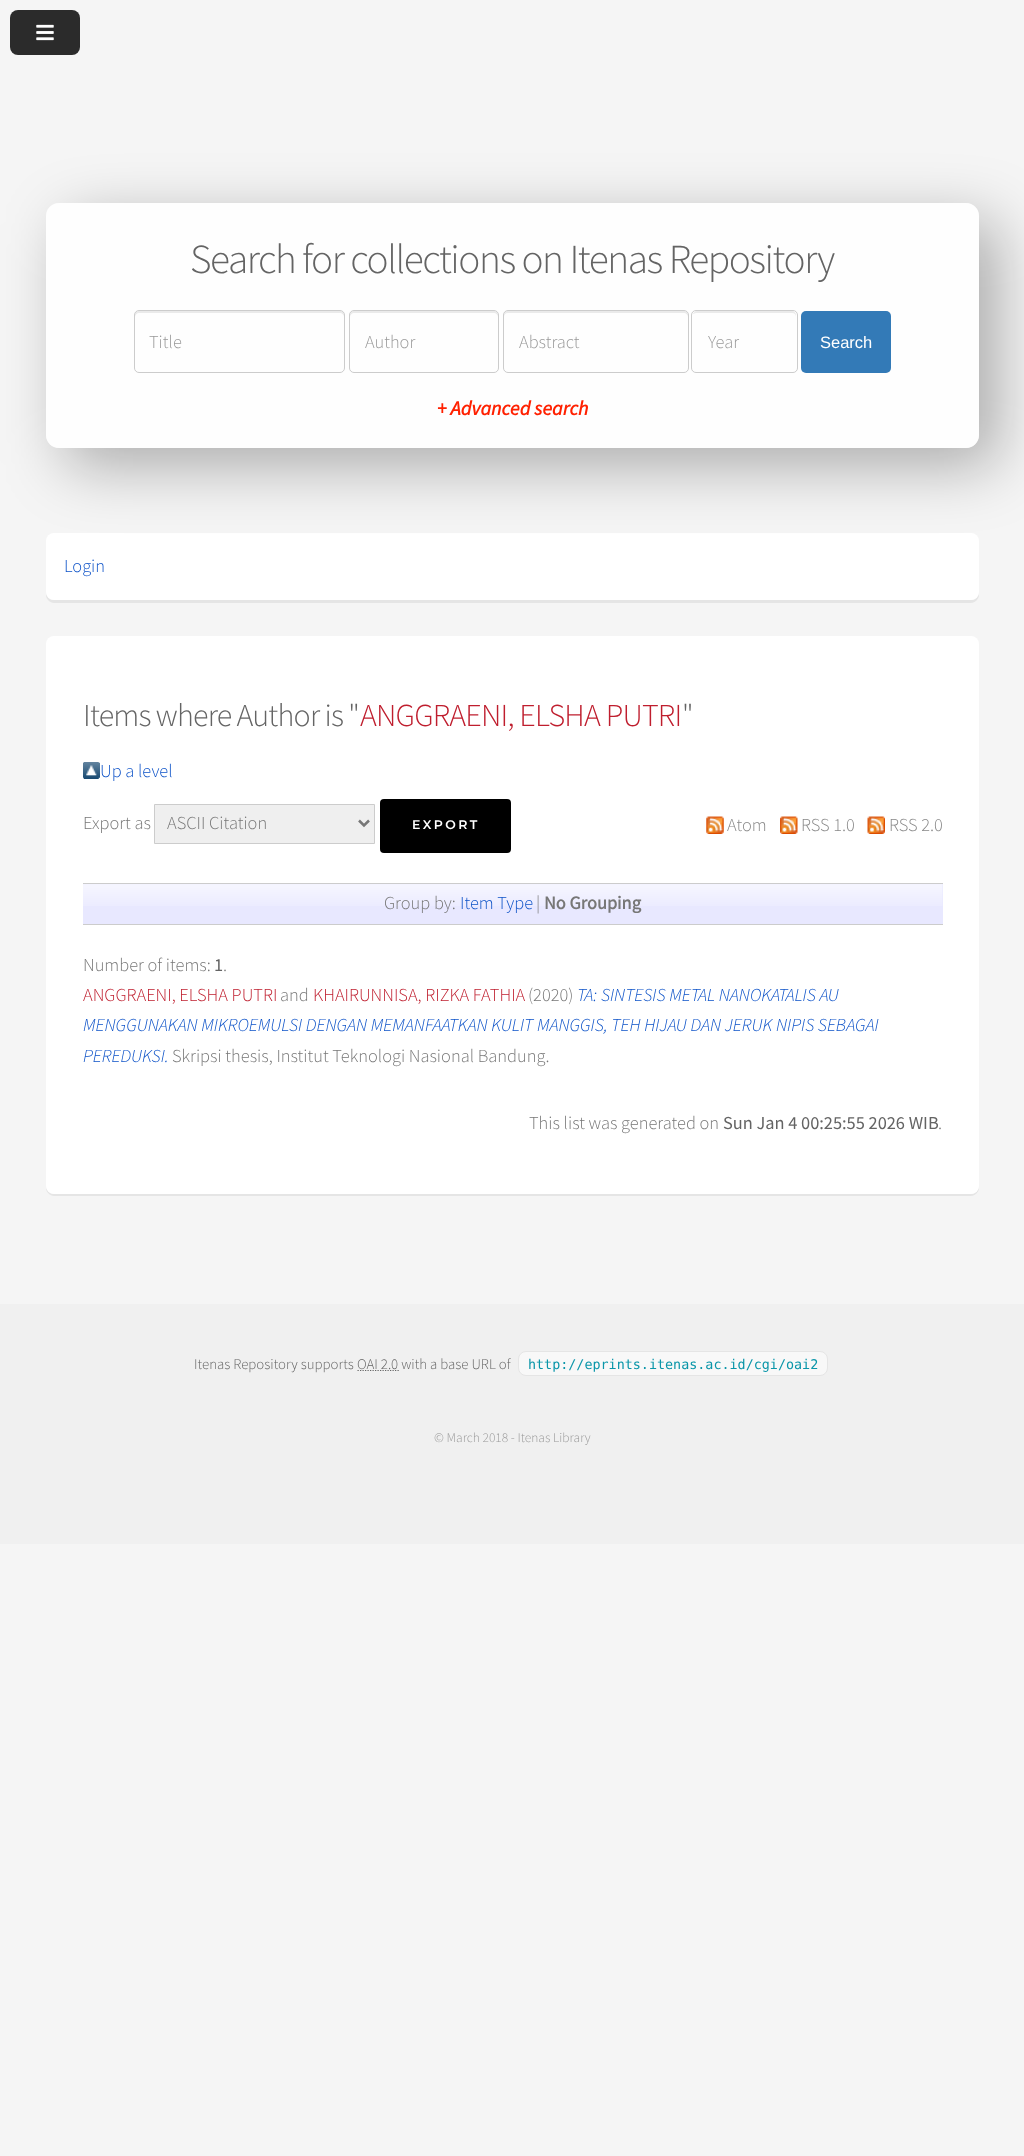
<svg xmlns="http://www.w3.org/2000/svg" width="1024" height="2156">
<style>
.a{font:300 41.25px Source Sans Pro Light;letter-spacing:-1.45px;fill:#646464}
.b{font:300 18.35px Source Sans Pro Light;fill:#999}
.c{font:16.5px Liberation Sans;fill:#fff}
.d{font:italic bold 20px Source Sans Pro;fill:#ff2000}
.e{font:300 18.35px Source Sans Pro Light;fill:#0e53c8}
.f{font:300 32px Source Sans Pro Light;letter-spacing:-0.8px;fill:#646464}
.g{font:300 32px Source Sans Pro Light;letter-spacing:-0.8px;fill:#bf1e2e}
.h{font:300 18.35px Source Sans Pro Light;fill:#777}
.i{font:600 12.5px Montserrat;letter-spacing:2.5px;fill:#fff}
.j{font:300 18.35px Source Sans Pro Light;fill:#888}
.k{font:bold 18.35px Source Sans Pro;fill:#777}
.l{font:18.35px Source Sans Pro;fill:#646464}
.m{font:300 18.35px Source Sans Pro Light;fill:#bf1e2e}
.n{font:italic 300 18.35px Source Sans Pro Light;fill:#0e53c8}
.o{font:300 14.8px Source Sans Pro Light;fill:#646464}
.p{font:13.4px DejaVu Sans Mono;fill:#0a96a9}
.q{font:300 13.4px Source Sans Pro Light;fill:#999}
</style>
<defs>
<clipPath id="clip1"><path d="M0 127h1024v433h-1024zm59 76h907c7 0 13 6 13 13v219c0 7-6 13-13 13h-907c-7 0-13-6-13-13v-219c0-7 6-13 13-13z" clip-rule="evenodd"/></clipPath>
</defs>
<rect width="100%" height="100%" fill="#f5f5f5"/>
<rect fill="#2b2b2b" x="10" y="10" width="70" height="45" rx="8"/>
<image href="1.png" x="36" y="24" width="18" height="17"/>
<path fill="#e5e5e5" d="M46 541v54c0 4 4 8 8 8h917c4 0 8-4 8-8v-54v51c0 5-4 8-8 8h-917c-4 0-8-3-8-8z"/>
<rect fill="#fff" x="46" y="533" width="933" height="67" rx="8"/>
<g clip-path="url(#clip1)">
<rect fill="#0000004d" filter="blur(31px)" x="65" y="221" width="933" height="245" rx="13"/>
</g>
<rect fill="#ffffffd9" x="46" y="203" width="933" height="245" rx="13"/>
<path fill="#eaeaea" d="M139 313h201c2 0 4 2 4 4c0-3 0-5-3-6h-202c-4 0-4 3-4 6c0-2 2-4 4-4z"/>
<rect fill="none" stroke="#ccc" x="134.5" y="310.5" width="210" height="62" rx="4.5"/>
<path fill="#eaeaea" d="M354 313h140c2 0 4 2 4 4v-2c0-2-2-4-4-4h-140c-2 0-4 2-4 4v2c0-2 2-4 4-4z"/>
<rect fill="none" stroke="#ccc" x="349.5" y="310.5" width="149" height="62" rx="4.5"/>
<path fill="#eaeaea" d="M508 313h176c2 0 4 2 4 4v-2c0-2-2-4-4-4h-176c-2 0-4 2-4 4v2c0-2 1-4 4-4z"/>
<rect fill="none" stroke="#ccc" x="503.5" y="310.5" width="185" height="62" rx="4.5"/>
<path fill="#eaeaea" d="M696 313h96c3 0 4 2 4 4v-2c0-2-2-4-4-4h-95c-2 0-4 2-4 3z"/>
<rect fill="none" stroke="#ccc" x="691.5" y="310.5" width="106" height="62" rx="4.5"/>
<rect fill="#337ab7" x="801" y="311" width="90" height="62" rx="5"/>
<path fill="#e5e5e5" d="M46 645v543c0 4 4 8 8 8h917c4 0 8-4 8-8v-543v541c0 4-4 8-8 8h-917c-4 0-8-4-8-8z"/>
<rect fill="#fff" x="46" y="636" width="933" height="558" rx="8"/>
<image href="2.png" x="83" y="762" width="17" height="17"/>
<path fill="#efefef" stroke="#ccc" d="M154.5 804.5h220v39H154.5z"/>
<path fill="none" stroke="#777" stroke-width="2.5" d="M359 820.5l5 5l5-5"/>
<rect fill="#000" x="380" y="799" width="131" height="54" rx="4"/>
<image href="3.png" x="706" y="816" width="18" height="18"/>
<image href="4.png" x="780" y="816" width="18" height="18"/>
<image href="5.png" x="867" y="816" width="18" height="18"/>
<path fill="#e8e8ff" d="M83 884h860v40H83z"/>
<image href="6.png" x="83" y="884" width="860" height="22"/>
<path fill="#ccc" d="M83 883h860v1H83z"/>
<path fill="#ccc" d="M83 924h860v1H83z"/>
<path fill="#f0f0f0" d="M0 1304h1024v240H0z"/>
<path fill="none" stroke="#666" stroke-width="1.2" stroke-dasharray="1.25 1.25" d="M357.5 1370.5h41.5"/>
<rect fill="#f8f8f8" stroke="#e5e5e5" x="518.5" y="1351.5" width="309" height="24" rx="7.5"/>
<text class="a" x="190" y="273">Search for collections on Itenas Repository</text>
<text class="b" x="149" y="348">Title</text>
<text class="b" x="365" y="348">Author</text>
<text class="b" x="519" y="348">Abstract</text>
<text class="b" x="708" y="348">Year</text>
<text class="c" x="820" y="348">Search</text>
<text class="d" x="437" y="415">+ Advanced search</text>
<text class="e" x="64" y="572">Login</text>
<text class="f" x="83" y="726" word-spacing="-0.5">Items where Author is "</text>
<text class="g" x="360" y="726">ANGGRAENI, ELSHA PUTRI</text>
<text class="f" x="682" y="726">"</text>
<text class="e" x="100" y="777">Up a level</text>
<text class="h" x="83" y="829">Export as</text>
<text class="h" x="167" y="829">ASCII Citation</text>
<text class="i" x="412" y="829">EXPORT</text>
<text class="j" x="727" y="831">Atom</text>
<text class="j" x="801" y="831">RSS 1.0</text>
<text class="j" x="889" y="831">RSS 2.0</text>
<text class="h" x="384" y="909">Group by:</text>
<text class="e" x="460" y="909">Item Type</text>
<text class="h" x="536" y="909">|</text>
<text class="k" x="544" y="909">No Grouping</text>
<text class="h" x="83" y="971">Number of items:</text>
<text class="l" x="214" y="971">1</text>
<text class="h" x="223" y="971">.</text>
<text class="m" x="83" y="1001">ANGGRAENI, ELSHA PUTRI</text>
<text class="h" x="280" y="1001">and</text>
<text class="m" x="313" y="1001">KHAIRUNNISA, RIZKA FATHIA</text>
<text class="h" x="528" y="1001">(2020)</text>
<text class="n" x="577" y="1001">TA: SINTESIS METAL NANOKATALIS AU</text>
<text class="n" x="83" y="1031">MENGGUNAKAN MIKROEMULSI DENGAN MEMANFAATKAN KULIT MANGGIS, TEH HIJAU DAN JERUK NIPIS SEBAGAI</text>
<text class="n" x="83" y="1062">PEREDUKSI.</text>
<text class="h" x="172" y="1062">Skripsi thesis, Institut Teknologi Nasional Bandung.</text>
<text class="h" x="529" y="1129">This list was generated on</text>
<text class="l" x="723" y="1129">Sun Jan 4 00:25:55 2026 WIB</text>
<text class="h" x="938" y="1129">.</text>
<text class="o" x="194" y="1369">Itenas Repository supports</text>
<text class="o" x="357" y="1369">OAI 2.0 with a base URL of</text>
<text class="p" x="528" y="1369">http://eprints.itenas.ac.id/cgi/oai2</text>
<text class="q" x="434" y="1442">© March 2018 - Itenas Library</text>
</svg>
